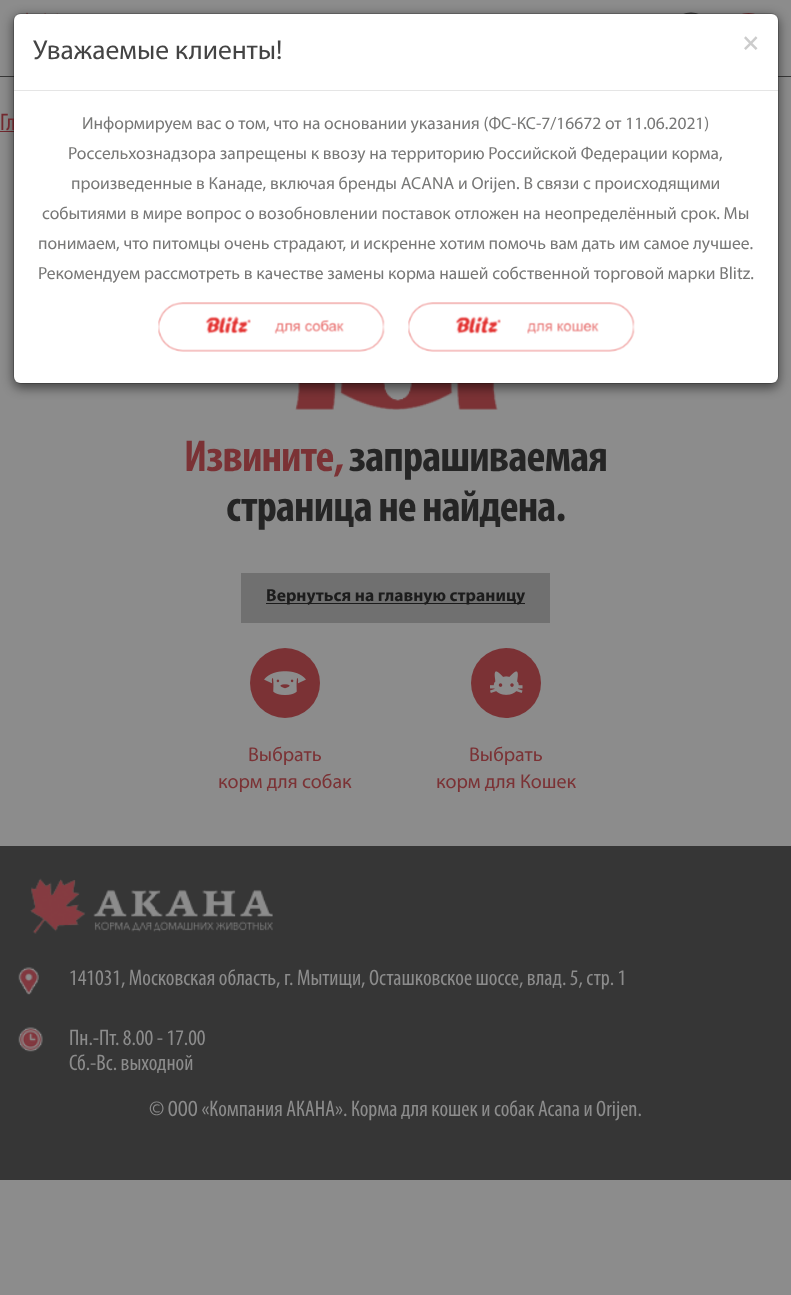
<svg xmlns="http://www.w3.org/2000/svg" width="791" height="1295">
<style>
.a{font:24px Myriad;fill:#72292f}
.b{font:17.5px 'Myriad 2';fill:#777776}
.c{font:bold 26px 'Myriad 2';fill:#ccc}
.d{font:27.5px 'Myriad 2';fill:#444}
.e{font:bold 45px Myriad;letter-spacing:-0.9px;fill:#7b3235}
.f{font:bold 45px Myriad;letter-spacing:-0.9px;fill:#252525}
.g{font:bold 17.5px 'Myriad 2';fill:#1c1c1c}
.h{font:20px 'Myriad 2';fill:#7b3235}
.i{font:22.5px Myriad;fill:#8c8c8c}
</style>
<rect width="100%" height="100%" fill="#8c8c8c"/>
<image href="1.png" x="26" y="12" width="32" height="2"/>
<ellipse fill="#363636" cx="691" cy="37.5" rx="24" ry="25"/>
<rect fill="#7b3235" x="724" y="13" width="49" height="50" rx="24.5"/>
<path fill="#383838" d="M0 76h791v1H0z"/>
<path fill="#72292f" d="M0 131h14v1H0z"/>
<image href="4.png" x="295" y="383" width="203" height="27"/>
<rect fill="#00000080" filter="blur(5.5px)" x="13" y="16" width="766" height="372" rx="8"/>
<path fill="#707070" d="M241 573h309v50H241z"/>
<path fill="#1c1c1c" d="M266 603h259v1H266z"/>
<circle fill="#7b3235" cx="285" cy="683" r="35"/>
<image href="5.png" x="264" y="671" width="42" height="24"/>
<circle fill="#7b3235" cx="506" cy="683" r="35"/>
<image href="6.png" x="490" y="671" width="33" height="24"/>
<path fill="#363636" d="M0 846h791v334H0z"/>
<image href="7.png" x="30" y="878" width="243" height="56"/>
<image href="8.png" x="18" y="967" width="21" height="28"/>
<image href="9.png" x="18" y="1027" width="25" height="25"/>
<text class="a" x="0" y="130">Гл</text>
<rect fill="#fff" x="14" y="14" width="764" height="369" rx="6"/>
<rect fill="none" stroke="#00000033" x="13.5" y="13.5" width="765" height="370" rx="7.5"/>
<image href="3.png" x="408" y="302" width="227" height="50"/>
<image href="2.png" x="158" y="302" width="227" height="50"/>
<text class="b" x="38" y="279">Рекомендуем рассмотреть в качестве замены корма нашей собственной торговой марки Blitz.</text>
<text class="b" x="38" y="249">понимаем, что питомцы очень страдают, и искренне хотим помочь вам дать им самое лучшее.</text>
<text class="b" x="42" y="219">событиями в мире вопрос о возобновлении поставок отложен на неопределённый срок. Мы</text>
<text class="b" x="71" y="189">произведенные в Канаде, включая бренды ACANA и Orijen. В связи с происходящими</text>
<text class="b" x="68" y="159">Россельхознадзора запрещены к ввозу на территорию Российской Федерации корма,</text>
<text class="b" x="82" y="129">Информируем вас о том, что на основании указания (ФС-КС-7/16672 от 11.06.2021)</text>
<text class="c" x="743" y="50">×</text>
<text class="d" x="33" y="59">Уважаемые клиенты!</text>
<path fill="#e5e5e5" d="M14 90h764v1H14z"/>
<text class="e" x="184" y="471">Извините,</text>
<text class="f" x="349" y="471">запрашиваемая</text>
<text class="f" x="226" y="521">страница не найдена.</text>
<text class="g" x="266" y="601">Вернуться на главную страницу</text>
<text class="h" x="248" y="761">Выбрать</text>
<text class="h" x="218" y="788">корм для собак</text>
<text class="h" x="469" y="761">Выбрать</text>
<text class="h" x="436" y="788">корм для Кошек</text>
<text class="i" x="69" y="985">141031, Московская область, г. Мытищи, Осташковское шоссе, влад. 5, стр. 1</text>
<text class="i" x="69" y="1045">Пн.-Пт. 8.00 - 17.00</text>
<text class="i" x="69" y="1070">Сб.-Вс. выходной</text>
<text class="i" x="149" y="1116">© ООО «Компания АКАНА». Корма для кошек и собак Acana и Orijen.</text>
</svg>
